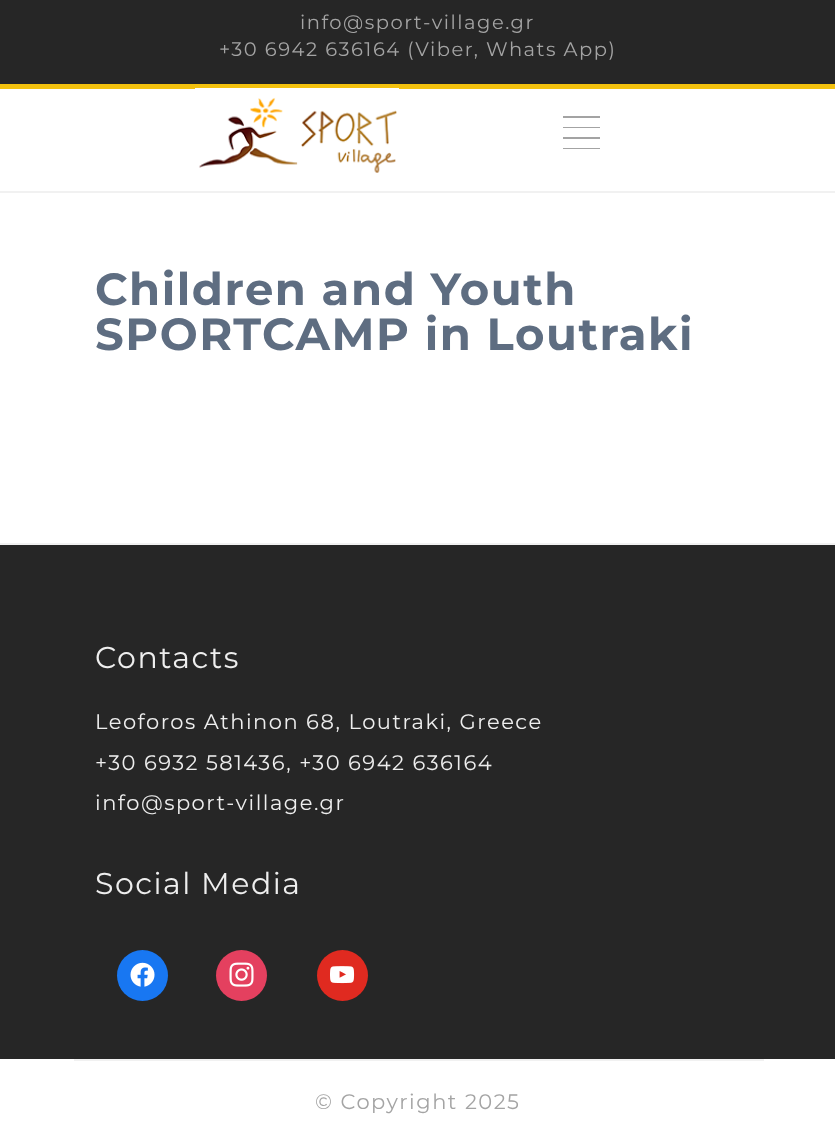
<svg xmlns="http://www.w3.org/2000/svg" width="835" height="1121">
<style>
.a{font:19.5px Montserrat;letter-spacing:1.5px;fill:#a4a4a4}
.b{font:bold 45px Montserrat;letter-spacing:1.5px;fill:#5e6d81}
.c{font:30px Montserrat;letter-spacing:1.5px;fill:#eee}
.d{font:21px Montserrat;letter-spacing:1.5px;fill:#eee}
.e{font:21px Montserrat;letter-spacing:1.5px;fill:#a4a4a4}
</style>
<rect width="100%" height="100%" fill="#fff"/>
<path fill="#262626" d="M0 0h835v84H0z"/>
<path fill="#f1f1f1" d="M0 191h835v2H0z"/>
<path fill="#f3c10e" d="M0 84h835v5H0z"/>
<image href="1.png" x="195" y="88" width="204" height="85"/>
<path fill="#a3a3a3" d="M563 116h37v2H563z"/>
<path fill="#a3a3a3" d="M563 127h37v1H563z"/>
<path fill="#a3a3a3" d="M563 137h37v2H563z"/>
<path fill="#a3a3a3" d="M563 148h37v1H563z"/>
<path fill="#262626" d="M0 545h835v514H0z"/>
<path fill="#f1f1f1" d="M0 543h835v2H0z"/>
<circle fill="#1877f2" cx="142.5" cy="975.5" r="25.5"/>
<image href="2.png" x="130" y="962" width="25" height="25"/>
<circle fill="#e4405f" cx="241.5" cy="975.5" r="25.5"/>
<image href="3.png" x="229" y="962" width="25" height="25"/>
<circle fill="#e02a20" cx="342.5" cy="975.5" r="25.5"/>
<image href="4.png" x="330" y="966" width="25" height="18"/>
<path fill="#f1f1f1" d="M74 1059h690v2H74z"/>
<text class="a" x="300" y="29">info@sport-village.gr</text>
<text class="a" x="219" y="56">+30 6942 636164 (Viber, Whats App)</text>
<text class="b" x="95" y="305">Children and Youth</text>
<text class="b" x="95" y="350">SPORTCAMP in Loutraki</text>
<text class="c" x="95" y="668">Contacts</text>
<text class="d" x="95" y="729">Leoforos Athinon 68, Loutraki, Greece</text>
<text class="d" x="95" y="770">+30 6932 581436, +30 6942 636164</text>
<text class="d" x="95" y="810">info@sport-village.gr</text>
<text class="c" x="95" y="894">Social Media</text>
<text class="e" x="315" y="1109">© Copyright 2025</text>
</svg>
